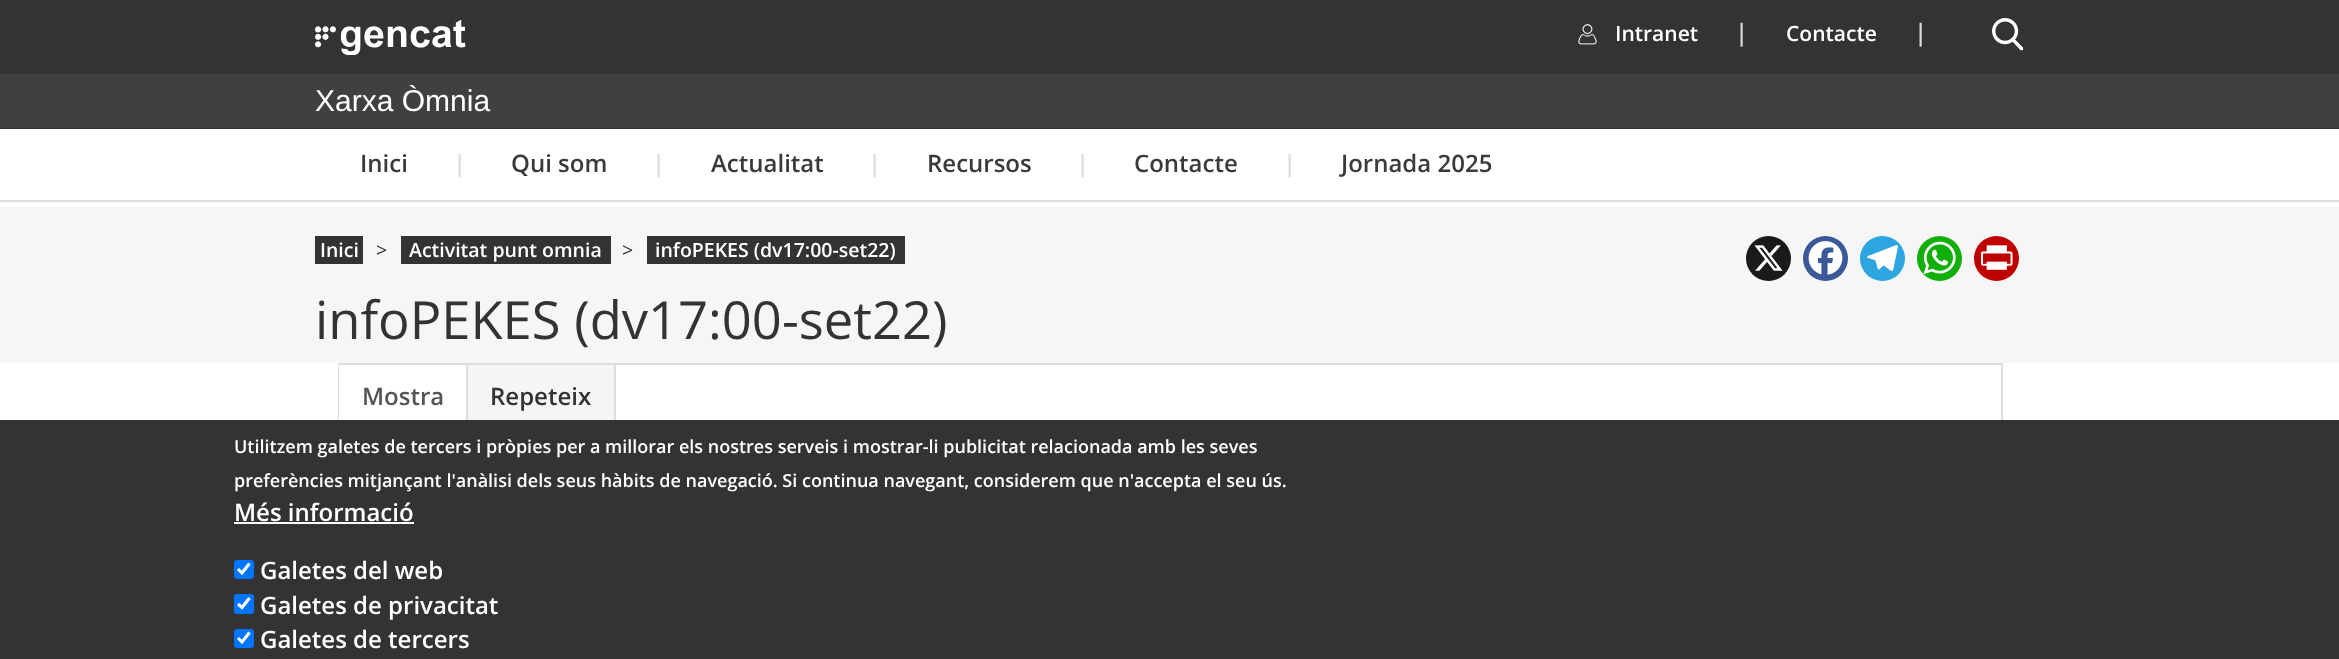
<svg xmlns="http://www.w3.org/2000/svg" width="2339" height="659">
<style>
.a{font:600 21px Open Sans;fill:#fff}
.b{font:600 24px Open Sans;fill:#ddd}
.c{font:30px Liberation Sans;fill:#fff}
.d{font:600 24px Open Sans;fill:#3a3a3a}
.e{font:600 19.5px Open Sans;fill:#fff}
.f{font:19.5px Open Sans;fill:#333}
.g{font:52.5px Open Sans;fill:#333}
.h{font:600 24px Open Sans;fill:#555}
.i{font:600 24px Open Sans;fill:#333}
.j{font:600 18px Open Sans;fill:#fff}
.k{font:600 24px Open Sans;fill:#fff}
</style>
<rect width="100%" height="100%" fill="#fff"/>
<path fill="#333" d="M0 0h2339v129H0z"/>
<image href="1.png" x="315" y="20" width="151" height="36"/>
<image href="2.png" x="1578" y="24" width="19" height="21"/>
<image href="3.png" x="1992" y="18" width="32" height="33"/>
<path fill="#404040" d="M0 74h2339v54H0z"/>
<path fill="#ddd" d="M0 200h2339v2H0z"/>
<path fill="#f6f6f6" d="M0 207h2339v156H0z"/>
<path fill="#333" d="M315 236h48v28H315z"/>
<path fill="#333" d="M401 236h210v28H401z"/>
<path fill="#333" d="M647 236h258v28H647z"/>
<circle fill="#1a1a1a" cx="1768.5" cy="258.5" r="22.5"/>
<image href="4.png" x="1754" y="245" width="29" height="26"/>
<circle fill="#3b5998" cx="1825.5" cy="258.5" r="22.5"/>
<image href="5.png" x="1808" y="241" width="35" height="34"/>
<circle fill="#2ca5e0" cx="1882.5" cy="258.5" r="22.5"/>
<image href="6.png" x="1867" y="245" width="31" height="26"/>
<circle fill="#12af0a" cx="1939.5" cy="258.5" r="22.5"/>
<image href="7.png" x="1923" y="241" width="33" height="33"/>
<circle fill="#bf0000" cx="1996.5" cy="258.5" r="22.5"/>
<image href="8.png" x="1981" y="245" width="32" height="25"/>
<path fill="none" stroke="#ddd" stroke-width="2" d="M339 364h1663v66H339z"/>
<path fill="#fff" d="M339 365h1v55H339z"/>
<path fill="#ddd" d="M468 364v66l-2-1v-65z"/>
<path fill="#f5f5f5" d="M468 365h146v55H468z"/>
<path fill="#ddd" d="M614 365h2v55H614z"/>
<path fill="#333" d="M0 420h2339v239H0z"/>
<path fill="#fff" d="M234 522h180v2H234z"/>
<rect fill="#0075ff" x="234" y="560" width="20" height="19" rx="3"/>
<path fill="none" stroke="#fff" stroke-width="3.1" d="M238 569l4 4l7.5-9.5"/>
<rect fill="#0075ff" x="234" y="594" width="20" height="20" rx="3"/>
<path fill="none" stroke="#fff" stroke-width="3.1" d="M238 604l4 3.5l7.5-9.5"/>
<rect fill="#0075ff" x="234" y="629" width="20" height="19" rx="3"/>
<path fill="none" stroke="#fff" stroke-width="3.1" d="M238 638l4 4l7.5-9.5"/>
<text class="a" x="1615" y="41">Intranet</text>
<text class="b" x="1735" y="41">|</text>
<text class="a" x="1786" y="41">Contacte</text>
<text class="b" x="1914" y="41">|</text>
<text class="c" x="315" y="111">Xarxa Òmnia</text>
<text class="d" x="360" y="172">Inici</text>
<text class="b" x="453" y="172">|</text>
<text class="d" x="511" y="172">Qui som</text>
<text class="b" x="652" y="172">|</text>
<text class="d" x="711" y="172">Actualitat</text>
<text class="b" x="868" y="172">|</text>
<text class="d" x="927" y="172">Recursos</text>
<text class="b" x="1076" y="172">|</text>
<text class="d" x="1134" y="172">Contacte</text>
<text class="b" x="1283" y="172">|</text>
<text class="d" x="1341" y="172">Jornada 2025</text>
<text class="e" x="320" y="257">Inici</text>
<text class="f" x="376" y="257">&gt;</text>
<text class="e" x="409" y="257">Activitat punt omnia</text>
<text class="f" x="622" y="257">&gt;</text>
<text class="e" x="655" y="257">infoPEKES (dv17:00-set22)</text>
<text class="g" x="315" y="339">infoPEKES (dv17:00-set22)</text>
<text class="h" x="362" y="405">Mostra</text>
<text class="i" x="490" y="405">Repeteix</text>
<text class="j" x="234" y="453">Utilitzem galetes de tercers i pròpies per a millorar els nostres serveis i mostrar-li publicitat relacionada amb les seves</text>
<text class="j" x="234" y="487">preferències mitjançant l'anàlisi dels seus hàbits de navegació. Si continua navegant, considerem que n'accepta el seu ús.</text>
<text class="k" x="234" y="521">Més informació</text>
<text class="k" x="260" y="579">Galetes del web</text>
<text class="k" x="260" y="614">Galetes de privacitat</text>
<text class="k" x="260" y="648">Galetes de tercers</text>
</svg>
